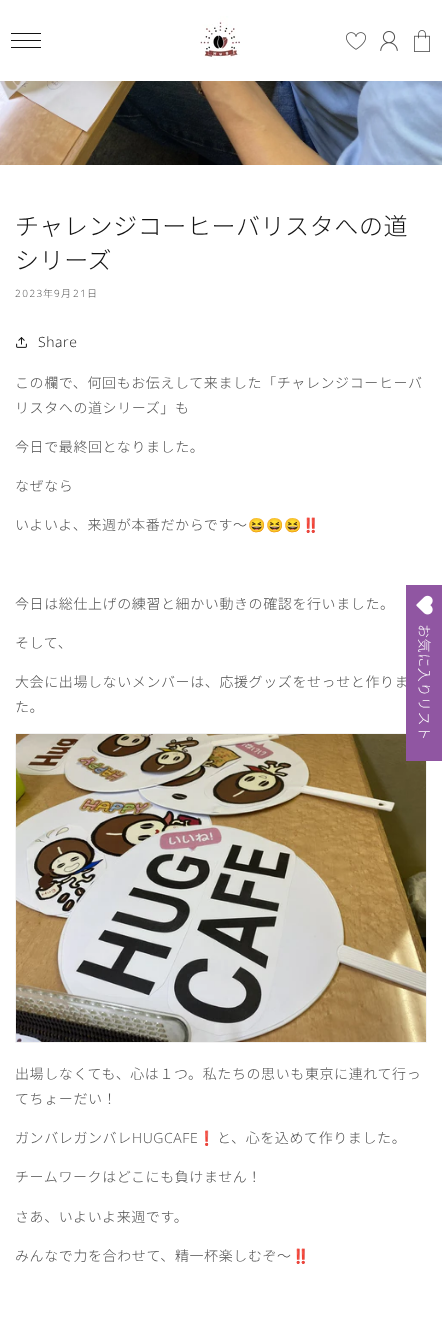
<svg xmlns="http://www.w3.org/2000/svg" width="442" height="1328">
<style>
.a{font:300 24px Noto Sans JP;letter-spacing:0.6px;fill:#121212}
.b{font:300 10px Open Sans;letter-spacing:1.5px;fill:#4d4d4d}
.c{font:300 10px Noto Sans JP;letter-spacing:1.5px;fill:#4d4d4d}
.d{font:300 14px Open Sans;letter-spacing:0.6px;fill:#121212}
.e{font:300 14px Noto Sans JP;letter-spacing:0.6px;fill:#4d4d4d}
.f{font:14px Noto Color Emoji;letter-spacing:0.6px;fill:#4d4d4d}
.g{font:300 14px Open Sans;letter-spacing:0.6px;fill:#4d4d4d}
.h{font:300 14px Noto Sans JP;letter-spacing:0.6px;fill:#fff}
</style>
<rect width="100%" height="100%" fill="#fff"/>
<path fill="#121212" d="M11 33h30v1H11z"/>
<path fill="#121212" d="M11 40h30v1H11z"/>
<path fill="#121212" d="M11 47h30v1H11z"/>
<image href="1.png" x="200" y="16" width="40" height="44"/>
<image href="2.png" x="346" y="32" width="20" height="18"/>
<image href="3.png" x="380" y="31" width="18" height="20"/>
<image href="4.png" x="414" y="30" width="16" height="22"/>
<image href="5.png" x="0" y="81" width="442" height="84"/>
<image href="6.png" x="16" y="337" width="11" height="11"/>
<path fill="none" stroke="#f3f3f3" d="M15.5 733.5h411v309H15.5z"/>
<image href="7.png" x="16" y="734" width="410" height="308"/>
<text class="a" x="15" y="235">チャレンジコーヒーバリスタへの道</text>
<text class="a" x="15" y="269">シリーズ</text>
<text class="b" x="15" y="297">2023</text>
<text class="c" x="43" y="297">年</text>
<text class="b" x="54" y="297">9</text>
<text class="c" x="61" y="297">月</text>
<text class="b" x="73" y="297">21</text>
<text class="c" x="87" y="297">日</text>
<text class="d" x="38" y="347">Share</text>
<text class="e" x="15" y="388">この欄で、何回もお伝えして来ました「チャレンジコーヒーバ</text>
<text class="e" x="15" y="413">リスタへの道シリーズ」も</text>
<text class="e" x="15" y="452">今日で最終回となりました。</text>
<text class="e" x="15" y="491">なぜなら</text>
<text class="e" x="15" y="530">いよいよ、来週が本番だからです〜</text>
<text class="f" x="248" y="530">😆😆😆‼️</text>
<text class="e" x="15" y="609">今日は総仕上げの練習と細かい動きの確認を行いました。</text>
<text class="e" x="15" y="648">そして、</text>
<text class="e" x="15" y="687">大会に出場しないメンバーは、応援グッズをせっせと作りま</text>
<text class="e" x="15" y="712">た。</text>
<text class="e" x="15" y="1079">出場しなくても、心は１つ。私たちの思いも東京に連れて行っ</text>
<text class="e" x="15" y="1104">てちょーだい！</text>
<text class="e" x="15" y="1143">ガンバレガンバレ</text>
<text class="g" x="132" y="1143">HUGCAFE</text>
<text class="f" x="198" y="1143">❗️</text>
<text class="e" x="217" y="1143">と、心を込めて作りました。</text>
<text class="e" x="15" y="1182">チームワークはどこにも負けません！</text>
<text class="e" x="15" y="1222">さあ、いよいよ来週です。</text>
<text class="e" x="15" y="1261">みんなで力を合わせて、精一杯楽しむぞ〜</text>
<text class="f" x="292" y="1261">‼️</text>
<path fill="#9056a2" d="M406 585h36v176H406z"/>
<image href="8.png" x="416" y="595" width="17" height="20"/>
<text class="h" x="419" y="624" transform="rotate(90 419 624)">お気に入りリスト</text>
</svg>
